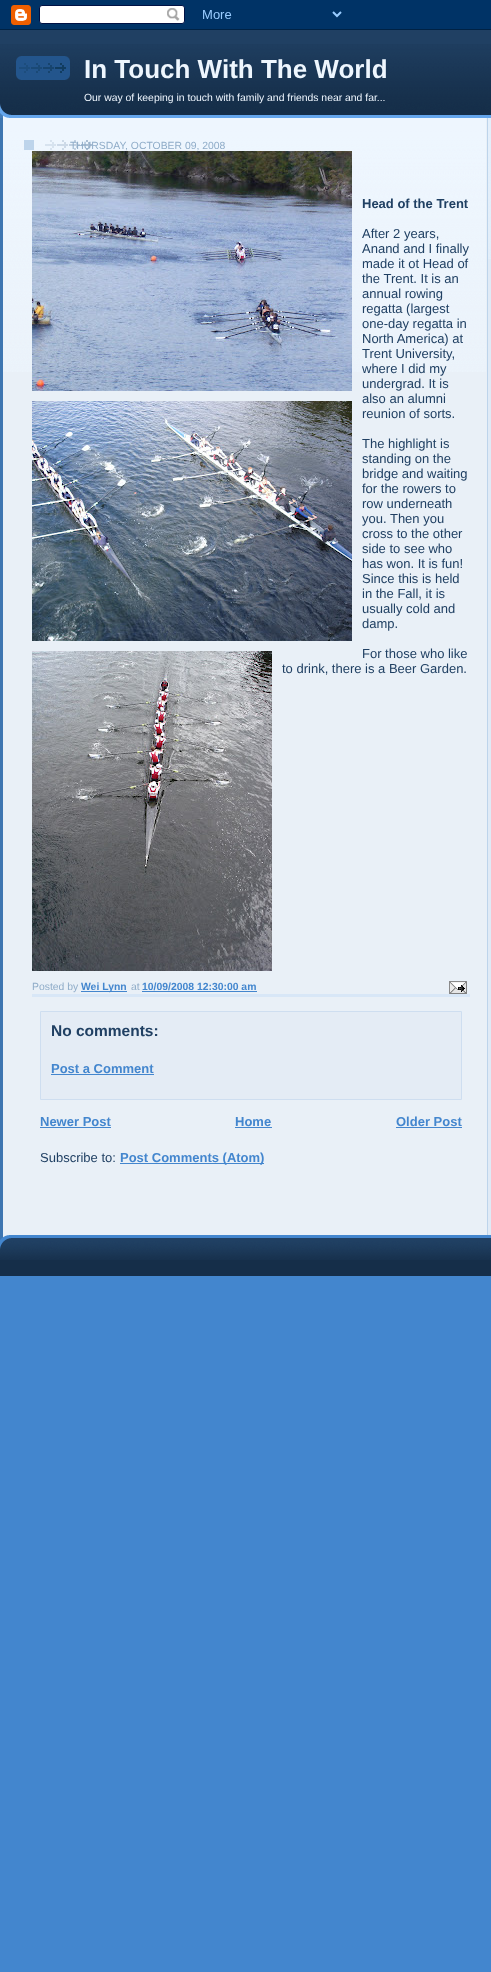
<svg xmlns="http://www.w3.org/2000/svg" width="491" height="1972">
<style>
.a{font:bold 26px Liberation Sans;fill:#eef6fe}
.b{font:10.4px Liberation Sans;fill:#eef6fe}
.c{font:10.4px Liberation Sans;fill:#8facc8}
.d{font:bold 13px Liberation Sans;fill:#204063}
.e{font:13px Liberation Sans;fill:#204063}
.f{font:bold 10.4px Liberation Sans;fill:#4386ce}
.g{font:bold 15.5px Liberation Sans;fill:#204063}
.h{font:bold 13px Liberation Sans;fill:#4386ce}
</style>
<rect width="100%" height="100%" fill="#4386ce"/>
<image href="1.png" x="0" y="108" width="491" height="10"/>
<image href="2.png" x="0" y="0" width="491" height="30"/>
<image href="3.png" x="0" y="103" width="491" height="15"/>
<path fill="#204063" d="M0 30h491v14H0z"/>
<image href="4.png" x="0" y="44" width="491" height="59"/>
<image href="5.png" x="16" y="56" width="54" height="24"/>
<image href="6.png" x="0" y="118" width="491" height="1117"/>
<image href="7.png" x="3" y="118" width="483" height="254"/>
<path fill="#bdd4eb" d="M24 140h10v10H24z"/>
<image href="8.png" x="45" y="140" width="47" height="10"/>
<path fill="#d8e7f7" d="M32 994h438v3H32z"/>
<image href="9.png" x="32" y="151" width="320" height="240"/>
<image href="10.png" x="32" y="401" width="320" height="240"/>
<image href="11.png" x="32" y="651" width="240" height="320"/>
<path fill="#4386ce" d="M81 991h46v1H81z"/>
<path fill="#4386ce" d="M142 991h115v1H142z"/>
<image href="12.png" x="449" y="981" width="18" height="13"/>
<path fill="#e4ecf5" stroke="#cedef0" d="M40.5 1011.5h421v88H40.5z"/>
<path fill="#4386ce" d="M51 1074h103v1H51z"/>
<path fill="#4386ce" d="M40 1127h71v1H40z"/>
<path fill="#4386ce" d="M235 1127h37v1H235z"/>
<path fill="#4386ce" d="M396 1127h66v1H396z"/>
<path fill="#4386ce" d="M120 1163h144v1H120z"/>
<image href="13.png" x="488" y="118" width="3" height="141"/>
<image href="14.png" x="0" y="1235" width="491" height="15"/>
<path fill="#152e49" d="M0 1260h491v16H0z"/>
<image href="15.png" x="0" y="1250" width="491" height="10"/>
<text class="a" x="84" y="78">In Touch With The World</text>
<text class="b" x="84" y="101">Our way of keeping in touch with family and friends near and far...</text>
<text class="c" x="70" y="149">THURSDAY, OCTOBER 09, 2008</text>
<text class="d" x="362" y="208">Head of the Trent</text>
<text class="e" x="362" y="238">After 2 years,</text>
<text class="e" x="362" y="253">Anand and I finally</text>
<text class="e" x="362" y="268">made it ot Head of</text>
<text class="e" x="362" y="283">the Trent. It is an</text>
<text class="e" x="362" y="298">annual rowing</text>
<text class="e" x="362" y="313">regatta (largest</text>
<text class="e" x="362" y="328">one-day regatta in</text>
<text class="e" x="362" y="343">North America) at</text>
<text class="e" x="362" y="358">Trent University,</text>
<text class="e" x="362" y="373">where I did my</text>
<text class="e" x="362" y="388">undergrad. It is</text>
<text class="e" x="362" y="403">also an alumni</text>
<text class="e" x="362" y="418">reunion of sorts.</text>
<text class="e" x="362" y="448">The highlight is</text>
<text class="e" x="362" y="463">standing on the</text>
<text class="e" x="362" y="478">bridge and waiting</text>
<text class="e" x="362" y="493">for the rowers to</text>
<text class="e" x="362" y="508">row underneath</text>
<text class="e" x="362" y="523">you. Then you</text>
<text class="e" x="362" y="538">cross to the other</text>
<text class="e" x="362" y="553">side to see who</text>
<text class="e" x="362" y="568">has won. It is fun!</text>
<text class="e" x="362" y="583">Since this is held</text>
<text class="e" x="362" y="598">in the Fall, it is</text>
<text class="e" x="362" y="613">usually cold and</text>
<text class="e" x="362" y="628">damp.</text>
<text class="e" x="362" y="658">For those who like</text>
<text class="e" x="282" y="673">to drink, there is a Beer Garden.</text>
<text class="c" x="32" y="990">Posted by</text>
<text class="f" x="81" y="990">Wei Lynn</text>
<text class="c" x="131" y="990">at</text>
<text class="f" x="142" y="990">10/09/2008 12:30:00 am</text>
<text class="g" x="51" y="1036">No comments:</text>
<text class="h" x="51" y="1073">Post a Comment</text>
<text class="h" x="40" y="1126">Newer Post</text>
<text class="h" x="235" y="1126">Home</text>
<text class="h" x="396" y="1126">Older Post</text>
<text class="e" x="40" y="1162">Subscribe to:</text>
<text class="h" x="120" y="1162">Post Comments (Atom)</text>
</svg>
